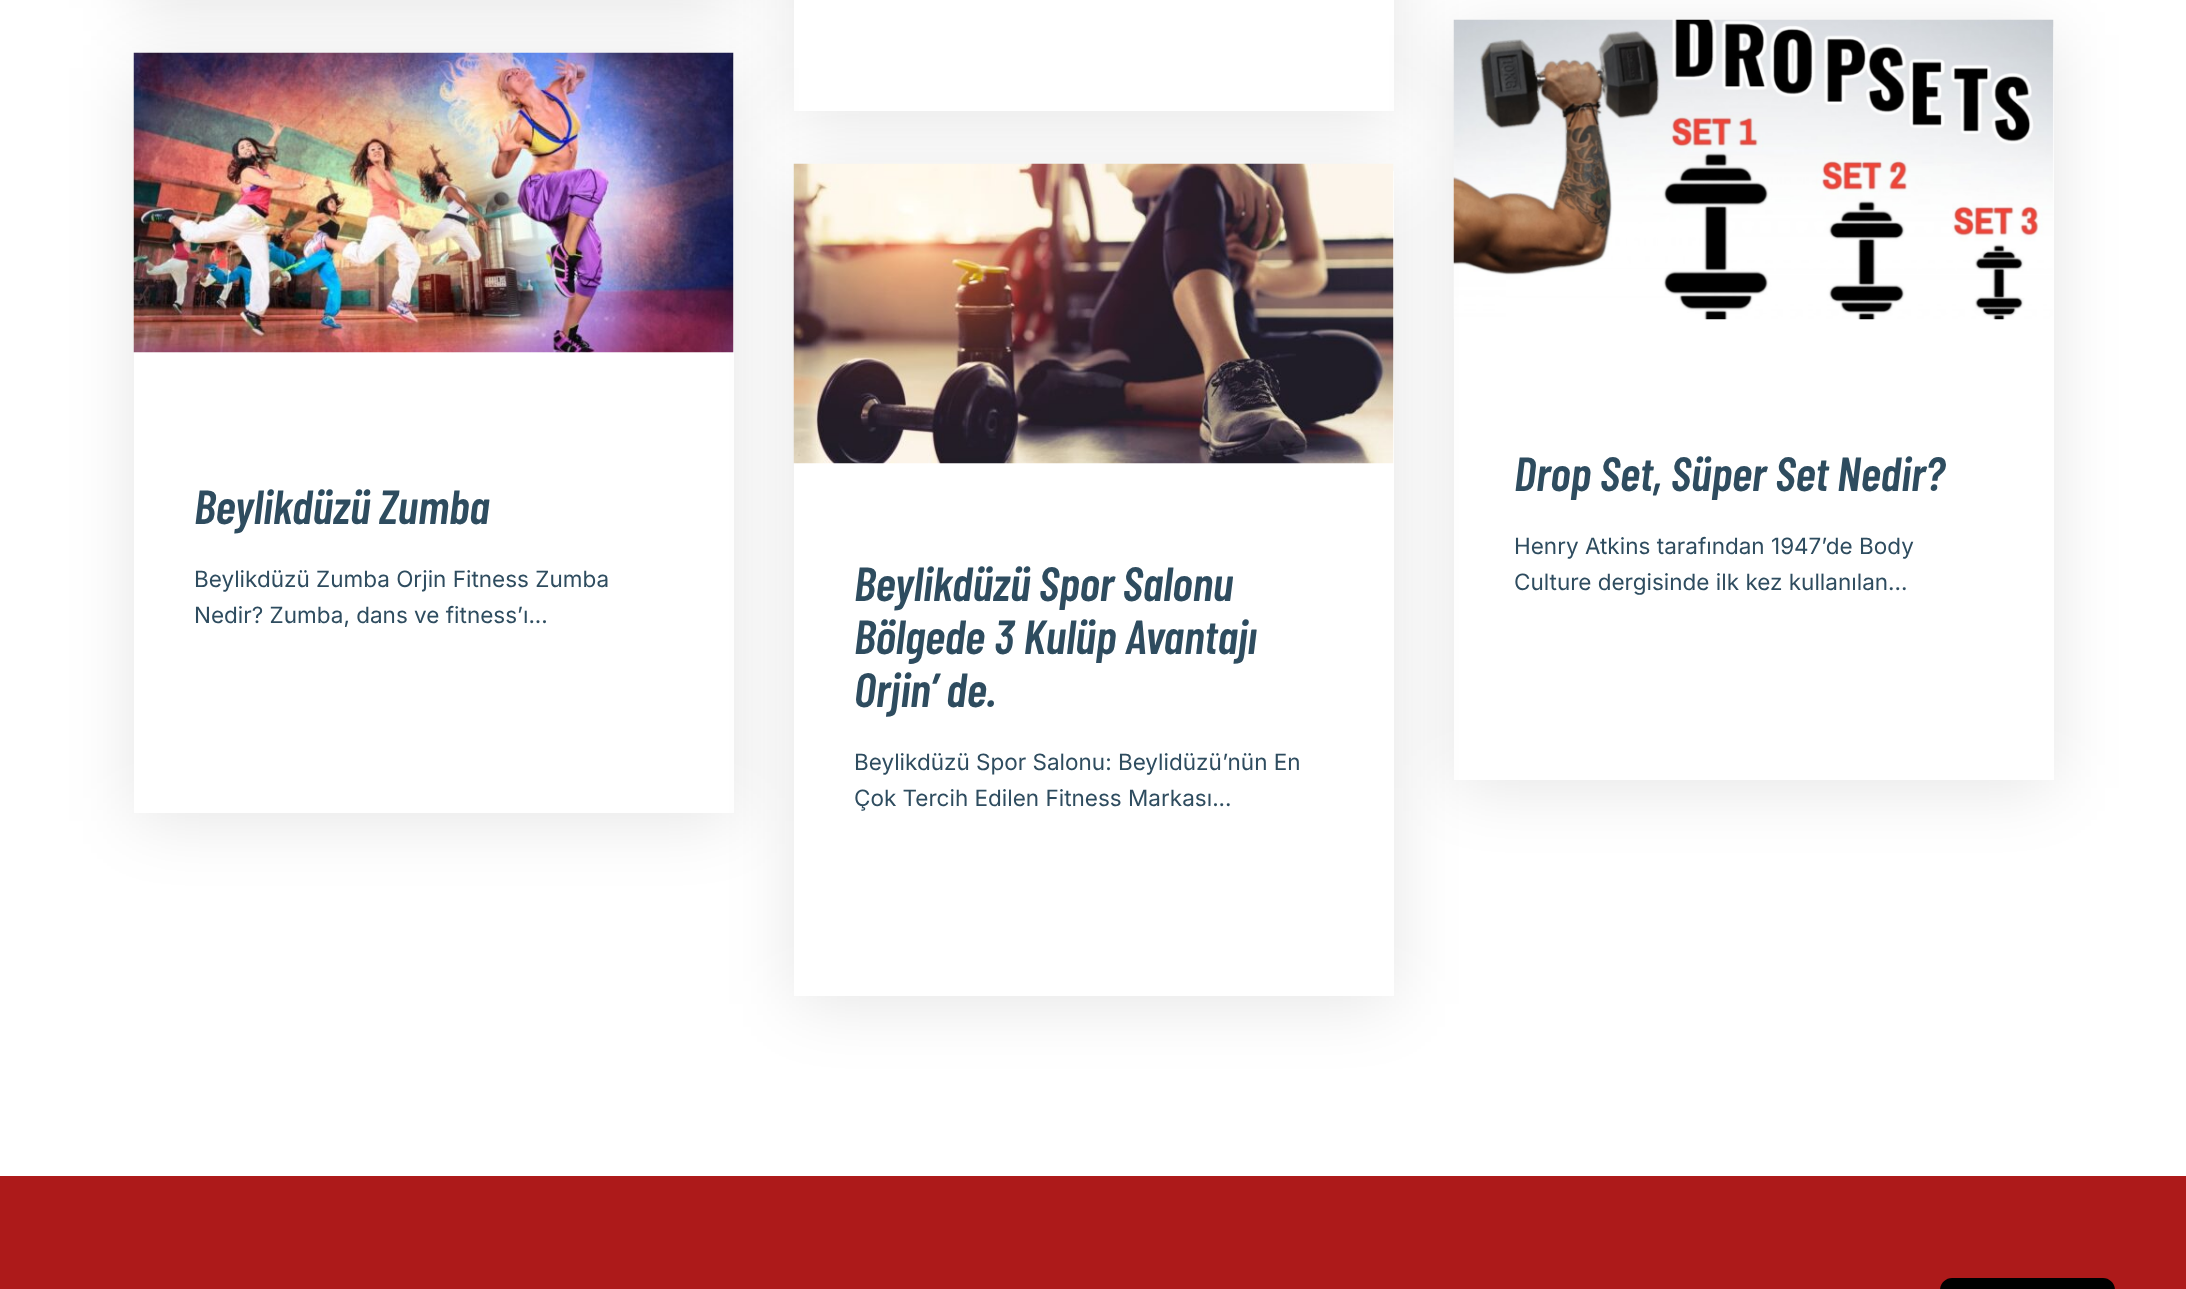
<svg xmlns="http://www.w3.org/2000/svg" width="2186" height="1289">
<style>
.a{font:italic 600 48px Barlow Condensed;fill:#2e4c5f}
.b{font:22.5px Inter;fill:#2e4c5f}
</style>
<rect width="100%" height="100%" fill="#fff"/>
<path fill="#0000001a" filter="blur(34px)" d="M134 -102h600v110H134z"/>
<path fill="#0000001a" filter="blur(34px)" d="M794 -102h600v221H794z"/>
<path fill="#fff" d="M794 0h600v111H794z"/>
<path fill="#0000001a" filter="blur(34px)" d="M134 68h600v753H134z"/>
<path fill="#fff" d="M134 60h600v753H134z"/>
<image href="1.png" x="133" y="52" width="601" height="301"/>
<path fill="#0000001a" filter="blur(34px)" d="M1454 35h600v753H1454z"/>
<path fill="#fff" d="M1454 27h600v753H1454z"/>
<image href="3.png" x="1453" y="19" width="601" height="301"/>
<path fill="#0000001a" filter="blur(34px)" d="M794 179h600v825H794z"/>
<path fill="#fff" d="M794 171h600v825H794z"/>
<image href="2.png" x="793" y="163" width="601" height="301"/>
<path fill="#ad1a1a" d="M0 1176h2186v113H0z"/>
<path fill="#000" d="M1952 1278h151c6.5 0 12 5.5 12 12v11h-175v-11c0-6.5 5.5-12 12-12z"/>
<text class="a" x="194" y="524" word-spacing="-1">Beylikdüzü Zumba</text>
<text class="b" x="194" y="587">Beylikdüzü Zumba Orjin Fitness Zumba</text>
<text class="b" x="194" y="623">Nedir? Zumba, dans ve fitness’ı...</text>
<text class="a" x="854" y="601" word-spacing="-1">Beylikdüzü Spor Salonu</text>
<text class="a" x="854" y="654">Bölgede 3 Kulüp Avantajı</text>
<text class="a" x="854" y="707" word-spacing="-1">Orjin’ de.</text>
<text class="b" x="854" y="770">Beylikdüzü Spor Salonu: Beylidüzü’nün En</text>
<text class="b" x="854" y="806">Çok Tercih Edilen Fitness Markası...</text>
<text class="a" x="1514" y="491" word-spacing="-0.5">Drop Set, Süper Set Nedir?</text>
<text class="b" x="1514" y="554">Henry Atkins tarafından 1947’de Body</text>
<text class="b" x="1514" y="590">Culture dergisinde ilk kez kullanılan...</text>
</svg>
